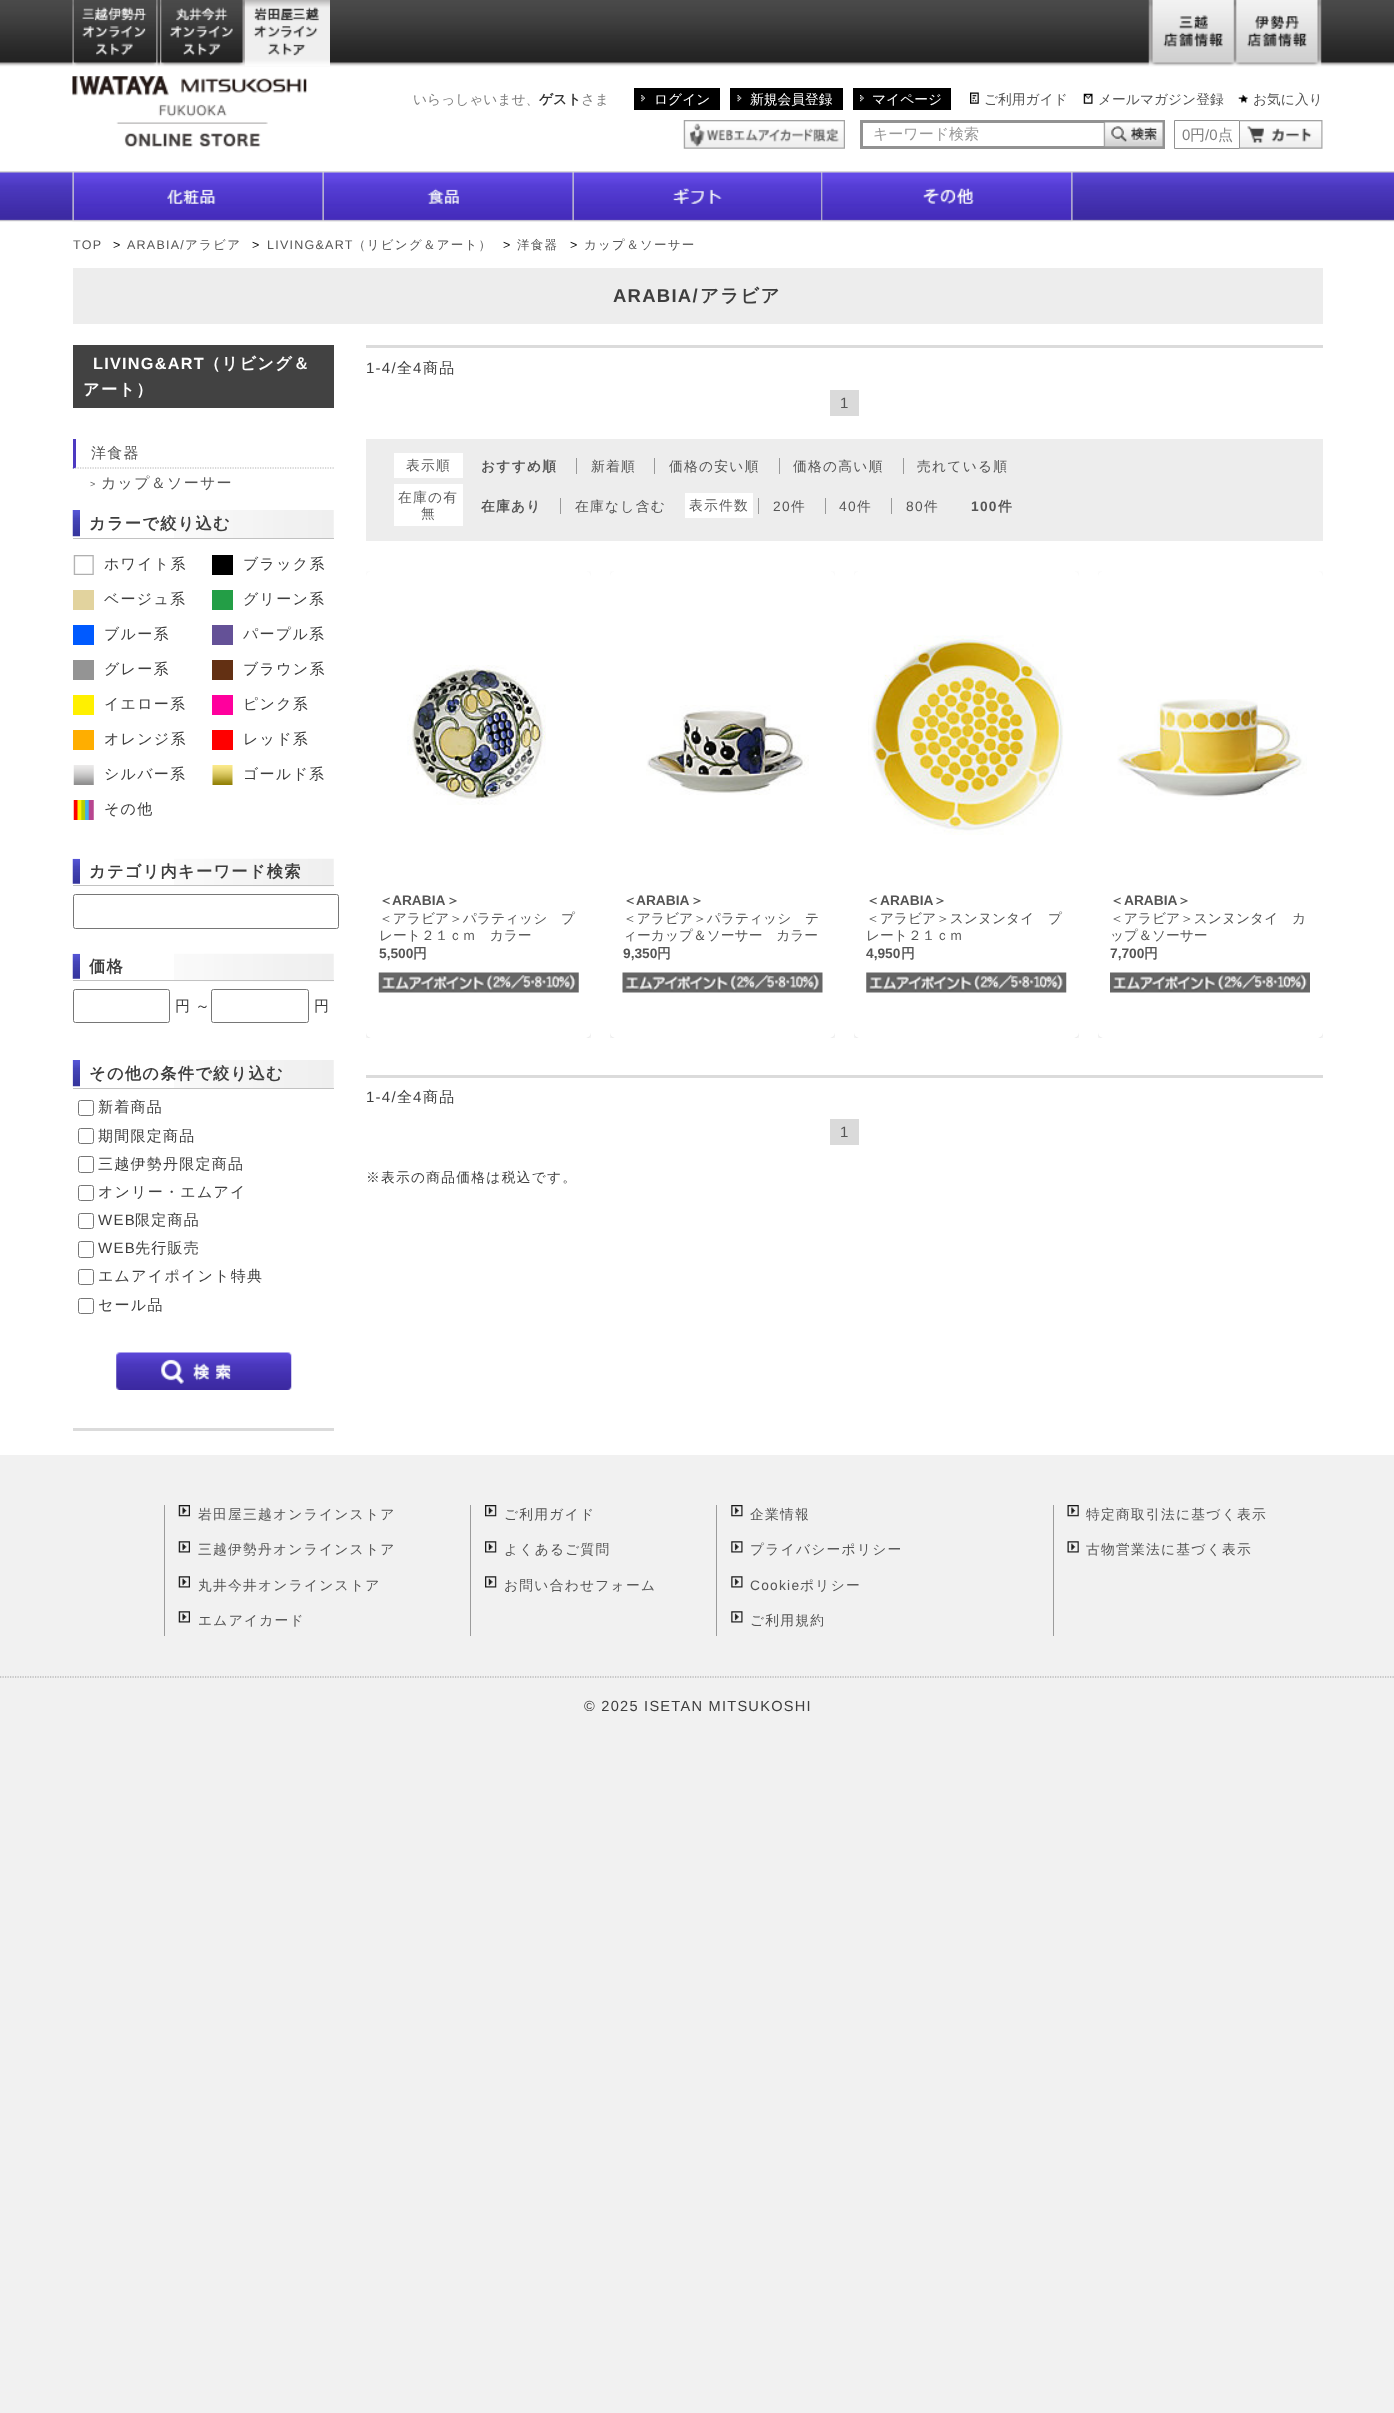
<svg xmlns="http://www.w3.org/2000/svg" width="1394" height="2413">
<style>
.a{font:500 13.75px WenQuanYi Zen Hei;fill:#7f7f7f}
.b{font:bold 13.75px WenQuanYi Zen Hei;fill:#333}
.c{font:500 13.75px WenQuanYi Zen Hei;fill:#fff}
.d{font:500 13.75px WenQuanYi Zen Hei;fill:#555}
.e{font:500 15px WenQuanYi Zen Hei;fill:#999}
.f{font:15px Liberation Sans;fill:#7f7f7f}
.g{font:500 15px WenQuanYi Zen Hei;fill:#7f7f7f}
.h{font:12.5px Liberation Sans;letter-spacing:1.25px;fill:#555}
.i{font:12.5px Liberation Sans;letter-spacing:1.25px;fill:#000}
.j{font:500 12.5px WenQuanYi Zen Hei;letter-spacing:1.25px;fill:#555}
.k{font:bold 18.5px Liberation Sans;letter-spacing:1.25px;fill:#3e3e3e}
.l{font:bold 18.5px WenQuanYi Zen Hei;letter-spacing:1.25px;fill:#3e3e3e}
.m{font:bold 16.25px Liberation Sans;letter-spacing:1.25px;fill:#fff}
.n{font:bold 16.25px WenQuanYi Zen Hei;letter-spacing:1.25px;fill:#fff}
.o{font:15px Liberation Sans;letter-spacing:1.25px;fill:#3e3e3e}
.p{font:500 15px WenQuanYi Zen Hei;letter-spacing:1.25px;fill:#3e3e3e}
.q{font:15px Liberation Sans;letter-spacing:1.25px;fill:#555}
.r{font:500 13.75px WenQuanYi Zen Hei;letter-spacing:1.25px;fill:#5d5d5d}
.s{font:bold 13.75px WenQuanYi Zen Hei;letter-spacing:1.25px;fill:#555}
.t{font:500 13.75px WenQuanYi Zen Hei;letter-spacing:1.25px;fill:#555}
.u{font:13.75px Liberation Sans;letter-spacing:1.25px;fill:#555}
.v{font:bold 13.75px Liberation Sans;letter-spacing:1.25px;fill:#555}
.w{font:bold 13.75px WenQuanYi Zen Hei;fill:#555}
.x{font:bold 13.75px Liberation Sans;fill:#555}
.y{font:500 13.75px WenQuanYi Zen Hei;letter-spacing:1.25px;fill:#3e3e3e}
.z{font:500 15px WenQuanYi Zen Hei;letter-spacing:1.25px;fill:#555}
.a1{font:9px Liberation Sans;letter-spacing:1.25px;fill:#555}
.b1{font:bold 16.25px WenQuanYi Zen Hei;letter-spacing:1.25px;fill:#3e3e3e}
.c1{font:14.6px Liberation Sans;letter-spacing:1.25px;fill:#3e3e3e}
</style>
<defs>
<clipPath id="clip1"><path d="M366 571h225v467H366z"/></clipPath>
<clipPath id="clip2"><path d="M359 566h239v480h-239zm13 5h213c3.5 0 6 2.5 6 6v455c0 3.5-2.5 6-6 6h-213c-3.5 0-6-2.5-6-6v-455c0-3.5 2.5-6 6-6z" clip-rule="evenodd"/></clipPath>
<clipPath id="clip3"><path d="M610 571h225v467H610z"/></clipPath>
<clipPath id="clip4"><path d="M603 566h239v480h-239zm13 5h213c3.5 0 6 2.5 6 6v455c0 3.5-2.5 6-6 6h-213c-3.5 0-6-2.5-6-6v-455c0-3.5 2.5-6 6-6z" clip-rule="evenodd"/></clipPath>
<clipPath id="clip5"><path d="M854 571h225v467H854z"/></clipPath>
<clipPath id="clip6"><path d="M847 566h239v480h-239zm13 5h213c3.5 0 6 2.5 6 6v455c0 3.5-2.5 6-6 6h-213c-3.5 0-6-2.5-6-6v-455c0-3.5 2.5-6 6-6z" clip-rule="evenodd"/></clipPath>
<clipPath id="clip7"><path d="M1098 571h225v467H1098z"/></clipPath>
<clipPath id="clip8"><path d="M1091 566h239v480h-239zm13 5h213c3.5 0 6 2.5 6 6v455c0 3.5-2.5 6-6 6h-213c-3.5 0-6-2.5-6-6v-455c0-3.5 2.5-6 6-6z" clip-rule="evenodd"/></clipPath>
<clipPath id="clip9"><path d="M73 339h1250v1116H73z"/></clipPath>
</defs>
<rect width="100%" height="100%" fill="#f1f1f1"/>
<path fill="#fff" d="M0 66h1394v1389H0z"/>
<image href="1.png" x="0" y="0" width="1394" height="67"/>
<image href="2.png" x="72" y="0" width="86" height="66"/>
<image href="3.png" x="160" y="0" width="85" height="66"/>
<image href="4.png" x="245" y="0" width="85" height="66"/>
<image href="5.png" x="1148" y="0" width="87" height="66"/>
<image href="6.png" x="1235" y="0" width="87" height="66"/>
<image href="7.png" x="72" y="76" width="235" height="71"/>
<path fill="#000" d="M634 88h86v22H634z"/>
<image href="8.png" x="641" y="95" width="4" height="7"/>
<path fill="#000" d="M730 88h113v22H730z"/>
<image href="9.png" x="737" y="95" width="5" height="7"/>
<path fill="#000" d="M853 88h98v22H853z"/>
<image href="10.png" x="860" y="95" width="4" height="7"/>
<image href="11.png" x="970" y="92" width="9" height="12"/>
<image href="12.png" x="1083" y="93" width="10" height="11"/>
<image href="13.png" x="1238" y="94" width="10" height="9"/>
<image href="14.png" x="683" y="120" width="162" height="29"/>
<path fill="none" stroke="#929292" stroke-width="3" d="M861.5 121.5h302v26H861.5z"/>
<image href="15.png" x="1103" y="122" width="60" height="25"/>
<path fill="none" stroke="#929292" d="M1174.5 120.5h65v28H1174.5z"/>
<image href="16.png" x="1240" y="120" width="83" height="29"/>
<image href="17.png" x="0" y="171" width="1394" height="51"/>
<image href="18.png" x="72" y="172" width="251" height="50"/>
<image href="19.png" x="322" y="172" width="251" height="50"/>
<image href="20.png" x="572" y="172" width="251" height="50"/>
<image href="21.png" x="822" y="172" width="251" height="50"/>
<path fill="#ededed" d="M73 268h1250v56H73z"/>
<path fill="#424242" d="M73 345h261v63H73z"/>
<path fill="#dbdbdb" d="M366 345h957v3H366z"/>
<path fill="#dadada" d="M830 390h29v26H830z"/>
<path fill="#ededed" d="M366 439h957v102H366z"/>
<path fill="#fff" d="M394 453h69v25H394z"/>
<path fill="#999" d="M576 458h1v16H576z"/>
<path fill="#999" d="M654 458h1v16H654z"/>
<path fill="#999" d="M779 458h1v16H779z"/>
<path fill="#999" d="M903 458h1v16H903z"/>
<path fill="#fff" d="M394 484h69v42H394z"/>
<path fill="#999" d="M560 498h1v16H560z"/>
<path fill="#fff" d="M685 493h68v25H685z"/>
<path fill="#999" d="M758 498h1v16H758z"/>
<path fill="#999" d="M825 498h1v16H825z"/>
<path fill="#999" d="M891 498h1v16H891z"/>
<g clip-path="url(#clip1)">
<g clip-path="url(#clip2)">
<rect fill="#00000026" filter="blur(2px)" x="366" y="573" width="225" height="466" rx="6"/>
</g>
</g>
<image href="22.png" x="407" y="665" width="139" height="140"/>
<image href="23.png" x="378" y="972" width="201" height="21"/>
<g clip-path="url(#clip3)">
<g clip-path="url(#clip4)">
<rect fill="#00000026" filter="blur(2px)" x="610" y="573" width="225" height="466" rx="6"/>
</g>
</g>
<image href="24.png" x="646" y="705" width="163" height="90"/>
<image href="25.png" x="622" y="972" width="201" height="21"/>
<g clip-path="url(#clip5)">
<g clip-path="url(#clip6)">
<rect fill="#00000026" filter="blur(2px)" x="854" y="573" width="225" height="466" rx="6"/>
</g>
</g>
<image href="26.png" x="868" y="635" width="196" height="200"/>
<image href="27.png" x="866" y="972" width="201" height="21"/>
<g clip-path="url(#clip7)">
<g clip-path="url(#clip8)">
<rect fill="#00000026" filter="blur(2px)" x="1098" y="573" width="225" height="466" rx="6"/>
</g>
</g>
<image href="28.png" x="1117" y="699" width="190" height="101"/>
<image href="29.png" x="1110" y="972" width="200" height="21"/>
<path fill="#dbdbdb" d="M366 1075h957v3H366z"/>
<path fill="#dadada" d="M830 1119h29v26H830z"/>
<path fill="#dbdbdb" d="M73 1428h261v3H73z"/>
<path fill="none" stroke="#b3b3b3" stroke-width="1.2" stroke-dasharray="1.25 1.25" d="M72.5 468h261.5"/>
<g clip-path="url(#clip9)">
<path fill="#4d3ac1" d="M72.5 469v-30h3.5v28.5z"/>
</g>
<image href="30.png" x="174" y="510" width="160" height="28"/>
<path fill="#c2c2c2" d="M73 538h261v1H73z"/>
<image href="31.png" x="72" y="510" width="8" height="27"/>
<image href="32.png" x="73" y="555" width="21" height="20"/>
<path fill="#000" d="M212 555h21v20H212z"/>
<path fill="#e2d39e" d="M73 590h21v20H73z"/>
<path fill="#239e46" d="M212 590h21v20H212z"/>
<path fill="#005aff" d="M73 625h21v20H73z"/>
<path fill="#645197" d="M212 625h21v20H212z"/>
<path fill="#949494" d="M73 660h21v20H73z"/>
<path fill="#633013" d="M212 660h21v20H212z"/>
<path fill="#fff000" d="M73 695h21v20H73z"/>
<path fill="#ff009d" d="M212 695h21v20H212z"/>
<path fill="#ffae00" d="M73 730h21v20H73z"/>
<path fill="#f00" d="M212 730h21v20H212z"/>
<image href="33.png" x="73" y="765" width="21" height="20"/>
<image href="34.png" x="212" y="765" width="21" height="20"/>
<image href="35.png" x="73" y="800" width="21" height="20"/>
<image href="36.png" x="174" y="858" width="160" height="29"/>
<path fill="#c2c2c2" d="M73 885h261v1H73z"/>
<image href="37.png" x="72" y="858" width="8" height="26"/>
<rect fill="none" stroke="#767676" x="73.5" y="894.5" width="265" height="34" rx="2"/>
<image href="36.png" x="174" y="953" width="160" height="29"/>
<path fill="#c2c2c2" d="M73 980h261v1H73z"/>
<image href="37.png" x="72" y="953" width="8" height="26"/>
<rect fill="none" stroke="#767676" x="73.5" y="989.5" width="96" height="33" rx="2"/>
<rect fill="none" stroke="#767676" x="211.5" y="989.5" width="97" height="33" rx="2"/>
<image href="30.png" x="174" y="1060" width="160" height="28"/>
<path fill="#c2c2c2" d="M73 1088h261v1H73z"/>
<image href="38.png" x="72" y="1060" width="8" height="27"/>
<rect fill="none" stroke="#767676" x="78.5" y="1100.5" width="15" height="15" rx="2"/>
<rect fill="none" stroke="#767676" x="78.5" y="1128.5" width="15" height="15" rx="2"/>
<rect fill="none" stroke="#767676" x="78.5" y="1156.5" width="15" height="16" rx="2"/>
<rect fill="none" stroke="#767676" x="78.5" y="1185.5" width="15" height="15" rx="2"/>
<rect fill="none" stroke="#767676" x="78.5" y="1213.5" width="15" height="15" rx="2"/>
<rect fill="none" stroke="#767676" x="78.5" y="1241.5" width="15" height="16" rx="2"/>
<rect fill="none" stroke="#767676" x="78.5" y="1269.5" width="15" height="15" rx="2"/>
<rect fill="none" stroke="#767676" x="78.5" y="1298.5" width="15" height="15" rx="2"/>
<image href="39.png" x="116" y="1352" width="176" height="38"/>
<path fill="#9c9c9c" d="M164 1505h1v131H164z"/>
<image href="40.png" x="178" y="1505" width="12" height="12"/>
<image href="41.png" x="178" y="1541" width="12" height="12"/>
<image href="41.png" x="178" y="1576" width="12" height="12"/>
<image href="41.png" x="178" y="1611" width="12" height="12"/>
<path fill="#9c9c9c" d="M470 1505h1v131H470z"/>
<image href="42.png" x="485" y="1505" width="12" height="12"/>
<image href="43.png" x="485" y="1541" width="12" height="12"/>
<image href="43.png" x="485" y="1576" width="12" height="12"/>
<path fill="#9c9c9c" d="M716 1505h1v131H716z"/>
<image href="44.png" x="731" y="1505" width="12" height="12"/>
<image href="45.png" x="731" y="1541" width="12" height="12"/>
<image href="45.png" x="731" y="1576" width="12" height="12"/>
<image href="45.png" x="731" y="1611" width="12" height="12"/>
<path fill="#9c9c9c" d="M1053 1505h1v131H1053z"/>
<image href="46.png" x="1067" y="1505" width="12" height="12"/>
<image href="47.png" x="1067" y="1541" width="12" height="12"/>
<path fill="none" stroke="#9d9d9d" stroke-width="1.2" stroke-dasharray="1.25 1.25" d="M0 1677h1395"/>
<text class="a" x="413" y="104">いらっしゃいませ、</text>
<text class="b" x="539" y="104">ゲスト</text>
<text class="a" x="581" y="104">さま</text>
<text class="c" x="654" y="104">ログイン</text>
<text class="c" x="750" y="104">新規会員登録</text>
<text class="c" x="872" y="104">マイページ</text>
<text class="d" x="984" y="104">ご利用ガイド</text>
<text class="d" x="1098" y="104">メールマガジン登録</text>
<text class="d" x="1253" y="104">お気に入り</text>
<text class="e" x="873" y="139">キーワード検索</text>
<text class="f" x="1182" y="140">0</text>
<text class="g" x="1190" y="140">円</text>
<text class="f" x="1205" y="140">/0</text>
<text class="g" x="1218" y="140">点</text>
<text class="h" x="73" y="249">TOP</text>
<text class="i" x="113" y="249">&gt;</text>
<text class="h" x="127" y="249">ARABIA/</text>
<text class="j" x="185" y="249">アラビア</text>
<text class="i" x="252" y="249">&gt;</text>
<text class="h" x="267" y="249">LIVING&amp;ART</text>
<text class="j" x="353" y="249">（リビング＆アート）</text>
<text class="i" x="503" y="249">&gt;</text>
<text class="j" x="517" y="249">洋食器</text>
<text class="i" x="570" y="249">&gt;</text>
<text class="j" x="584" y="249">カップ＆ソーサー</text>
<text class="k" x="613" y="302">ARABIA/</text>
<text class="l" x="700" y="302">アラビア</text>
<text class="m" x="93" y="369">LIVING&amp;ART</text>
<text class="n" x="204" y="369">（リビング＆</text>
<text class="n" x="83" y="395">アート）</text>
<text class="o" x="366" y="373">1-4/</text>
<text class="p" x="397" y="373">全</text>
<text class="o" x="413" y="373">4</text>
<text class="p" x="423" y="373">商品</text>
<text class="q" x="840" y="408">1</text>
<text class="r" x="406" y="470">表示順</text>
<text class="s" x="481" y="471">おすすめ順</text>
<text class="t" x="591" y="471">新着順</text>
<text class="t" x="669" y="471">価格の安い順</text>
<text class="t" x="793" y="471">価格の高い順</text>
<text class="t" x="917" y="471">売れている順</text>
<text class="r" x="398" y="502">在庫の有</text>
<text class="r" x="421" y="518">無</text>
<text class="s" x="481" y="511">在庫あり</text>
<text class="t" x="575" y="511">在庫なし含む</text>
<text class="r" x="689" y="510">表示件数</text>
<text class="u" x="773" y="511">20</text>
<text class="t" x="791" y="511">件</text>
<text class="u" x="839" y="511">40</text>
<text class="t" x="857" y="511">件</text>
<text class="u" x="906" y="511">80</text>
<text class="t" x="924" y="511">件</text>
<text class="v" x="971" y="511">100</text>
<text class="s" x="998" y="511">件</text>
<text class="w" x="379" y="905">＜</text>
<text class="x" x="392" y="905">ARABIA</text>
<text class="w" x="446" y="905">＞</text>
<text class="d" x="379" y="923">＜アラビア＞パラティッシ　プ</text>
<text class="d" x="379" y="940">レート２１ｃｍ　カラー</text>
<text class="x" x="379" y="958">5,500</text>
<text class="w" x="413" y="958">円</text>
<text class="w" x="623" y="905">＜</text>
<text class="x" x="636" y="905">ARABIA</text>
<text class="w" x="690" y="905">＞</text>
<text class="d" x="623" y="923">＜アラビア＞パラティッシ　テ</text>
<text class="d" x="623" y="940">ィーカップ＆ソーサー　カラー</text>
<text class="x" x="623" y="958">9,350</text>
<text class="w" x="657" y="958">円</text>
<text class="w" x="866" y="905">＜</text>
<text class="x" x="880" y="905">ARABIA</text>
<text class="w" x="933" y="905">＞</text>
<text class="d" x="866" y="923">＜アラビア＞スンヌンタイ　プ</text>
<text class="d" x="866" y="940">レート２１ｃｍ</text>
<text class="x" x="866" y="958">4,950</text>
<text class="w" x="901" y="958">円</text>
<text class="w" x="1110" y="905">＜</text>
<text class="x" x="1124" y="905">ARABIA</text>
<text class="w" x="1177" y="905">＞</text>
<text class="d" x="1110" y="923">＜アラビア＞スンヌンタイ　カ</text>
<text class="d" x="1110" y="940">ップ＆ソーサー</text>
<text class="x" x="1110" y="958">7,700</text>
<text class="w" x="1144" y="958">円</text>
<text class="o" x="366" y="1102">1-4/</text>
<text class="p" x="397" y="1102">全</text>
<text class="o" x="413" y="1102">4</text>
<text class="p" x="423" y="1102">商品</text>
<text class="q" x="840" y="1137">1</text>
<text class="y" x="366" y="1182">※表示の商品価格は税込です。</text>
<text class="z" x="91" y="458">洋食器</text>
<text class="a1" x="90" y="487">&gt;</text>
<text class="z" x="101" y="488">カップ＆ソーサー</text>
<text class="b1" x="89" y="529">カラーで絞り込む</text>
<text class="p" x="104" y="569">ホワイト系</text>
<text class="p" x="243" y="569">ブラック系</text>
<text class="p" x="104" y="604">ベージュ系</text>
<text class="p" x="243" y="604">グリーン系</text>
<text class="p" x="104" y="639">ブルー系</text>
<text class="p" x="243" y="639">パープル系</text>
<text class="p" x="104" y="674">グレー系</text>
<text class="p" x="243" y="674">ブラウン系</text>
<text class="p" x="104" y="709">イエロー系</text>
<text class="p" x="243" y="709">ピンク系</text>
<text class="p" x="104" y="744">オレンジ系</text>
<text class="p" x="243" y="744">レッド系</text>
<text class="p" x="104" y="779">シルバー系</text>
<text class="p" x="243" y="779">ゴールド系</text>
<text class="p" x="104" y="814">その他</text>
<text class="b1" x="89" y="877">カテゴリ内キーワード検索</text>
<text class="b1" x="89" y="972">価格</text>
<text class="p" x="175" y="1011">円</text>
<text class="p" x="195" y="1011">～</text>
<text class="p" x="314" y="1011">円</text>
<text class="b1" x="89" y="1079">その他の条件で絞り込む</text>
<text class="p" x="98" y="1112">新着商品</text>
<text class="p" x="98" y="1141">期間限定商品</text>
<text class="p" x="98" y="1169">三越伊勢丹限定商品</text>
<text class="p" x="98" y="1197">オンリー・エムアイ</text>
<text class="o" x="98" y="1225">WEB</text>
<text class="p" x="135" y="1225">限定商品</text>
<text class="o" x="98" y="1253">WEB</text>
<text class="p" x="135" y="1253">先行販売</text>
<text class="p" x="98" y="1281">エムアイポイント特典</text>
<text class="p" x="98" y="1310">セール品</text>
<text class="t" x="198" y="1519">岩田屋三越オンラインストア</text>
<text class="t" x="198" y="1554">三越伊勢丹オンラインストア</text>
<text class="t" x="198" y="1590">丸井今井オンラインストア</text>
<text class="t" x="198" y="1625">エムアイカード</text>
<text class="t" x="504" y="1519">ご利用ガイド</text>
<text class="t" x="504" y="1554">よくあるご質問</text>
<text class="t" x="504" y="1590">お問い合わせフォーム</text>
<text class="t" x="750" y="1519">企業情報</text>
<text class="t" x="750" y="1554">プライバシーポリシー</text>
<text class="u" x="750" y="1590">Cookie</text>
<text class="t" x="800" y="1590">ポリシー</text>
<text class="t" x="750" y="1625">ご利用規約</text>
<text class="t" x="1086" y="1519">特定商取引法に基づく表示</text>
<text class="t" x="1086" y="1554">古物営業法に基づく表示</text>
<text class="c1" x="584" y="1711">© 2025 ISETAN MITSUKOSHI</text>
</svg>
